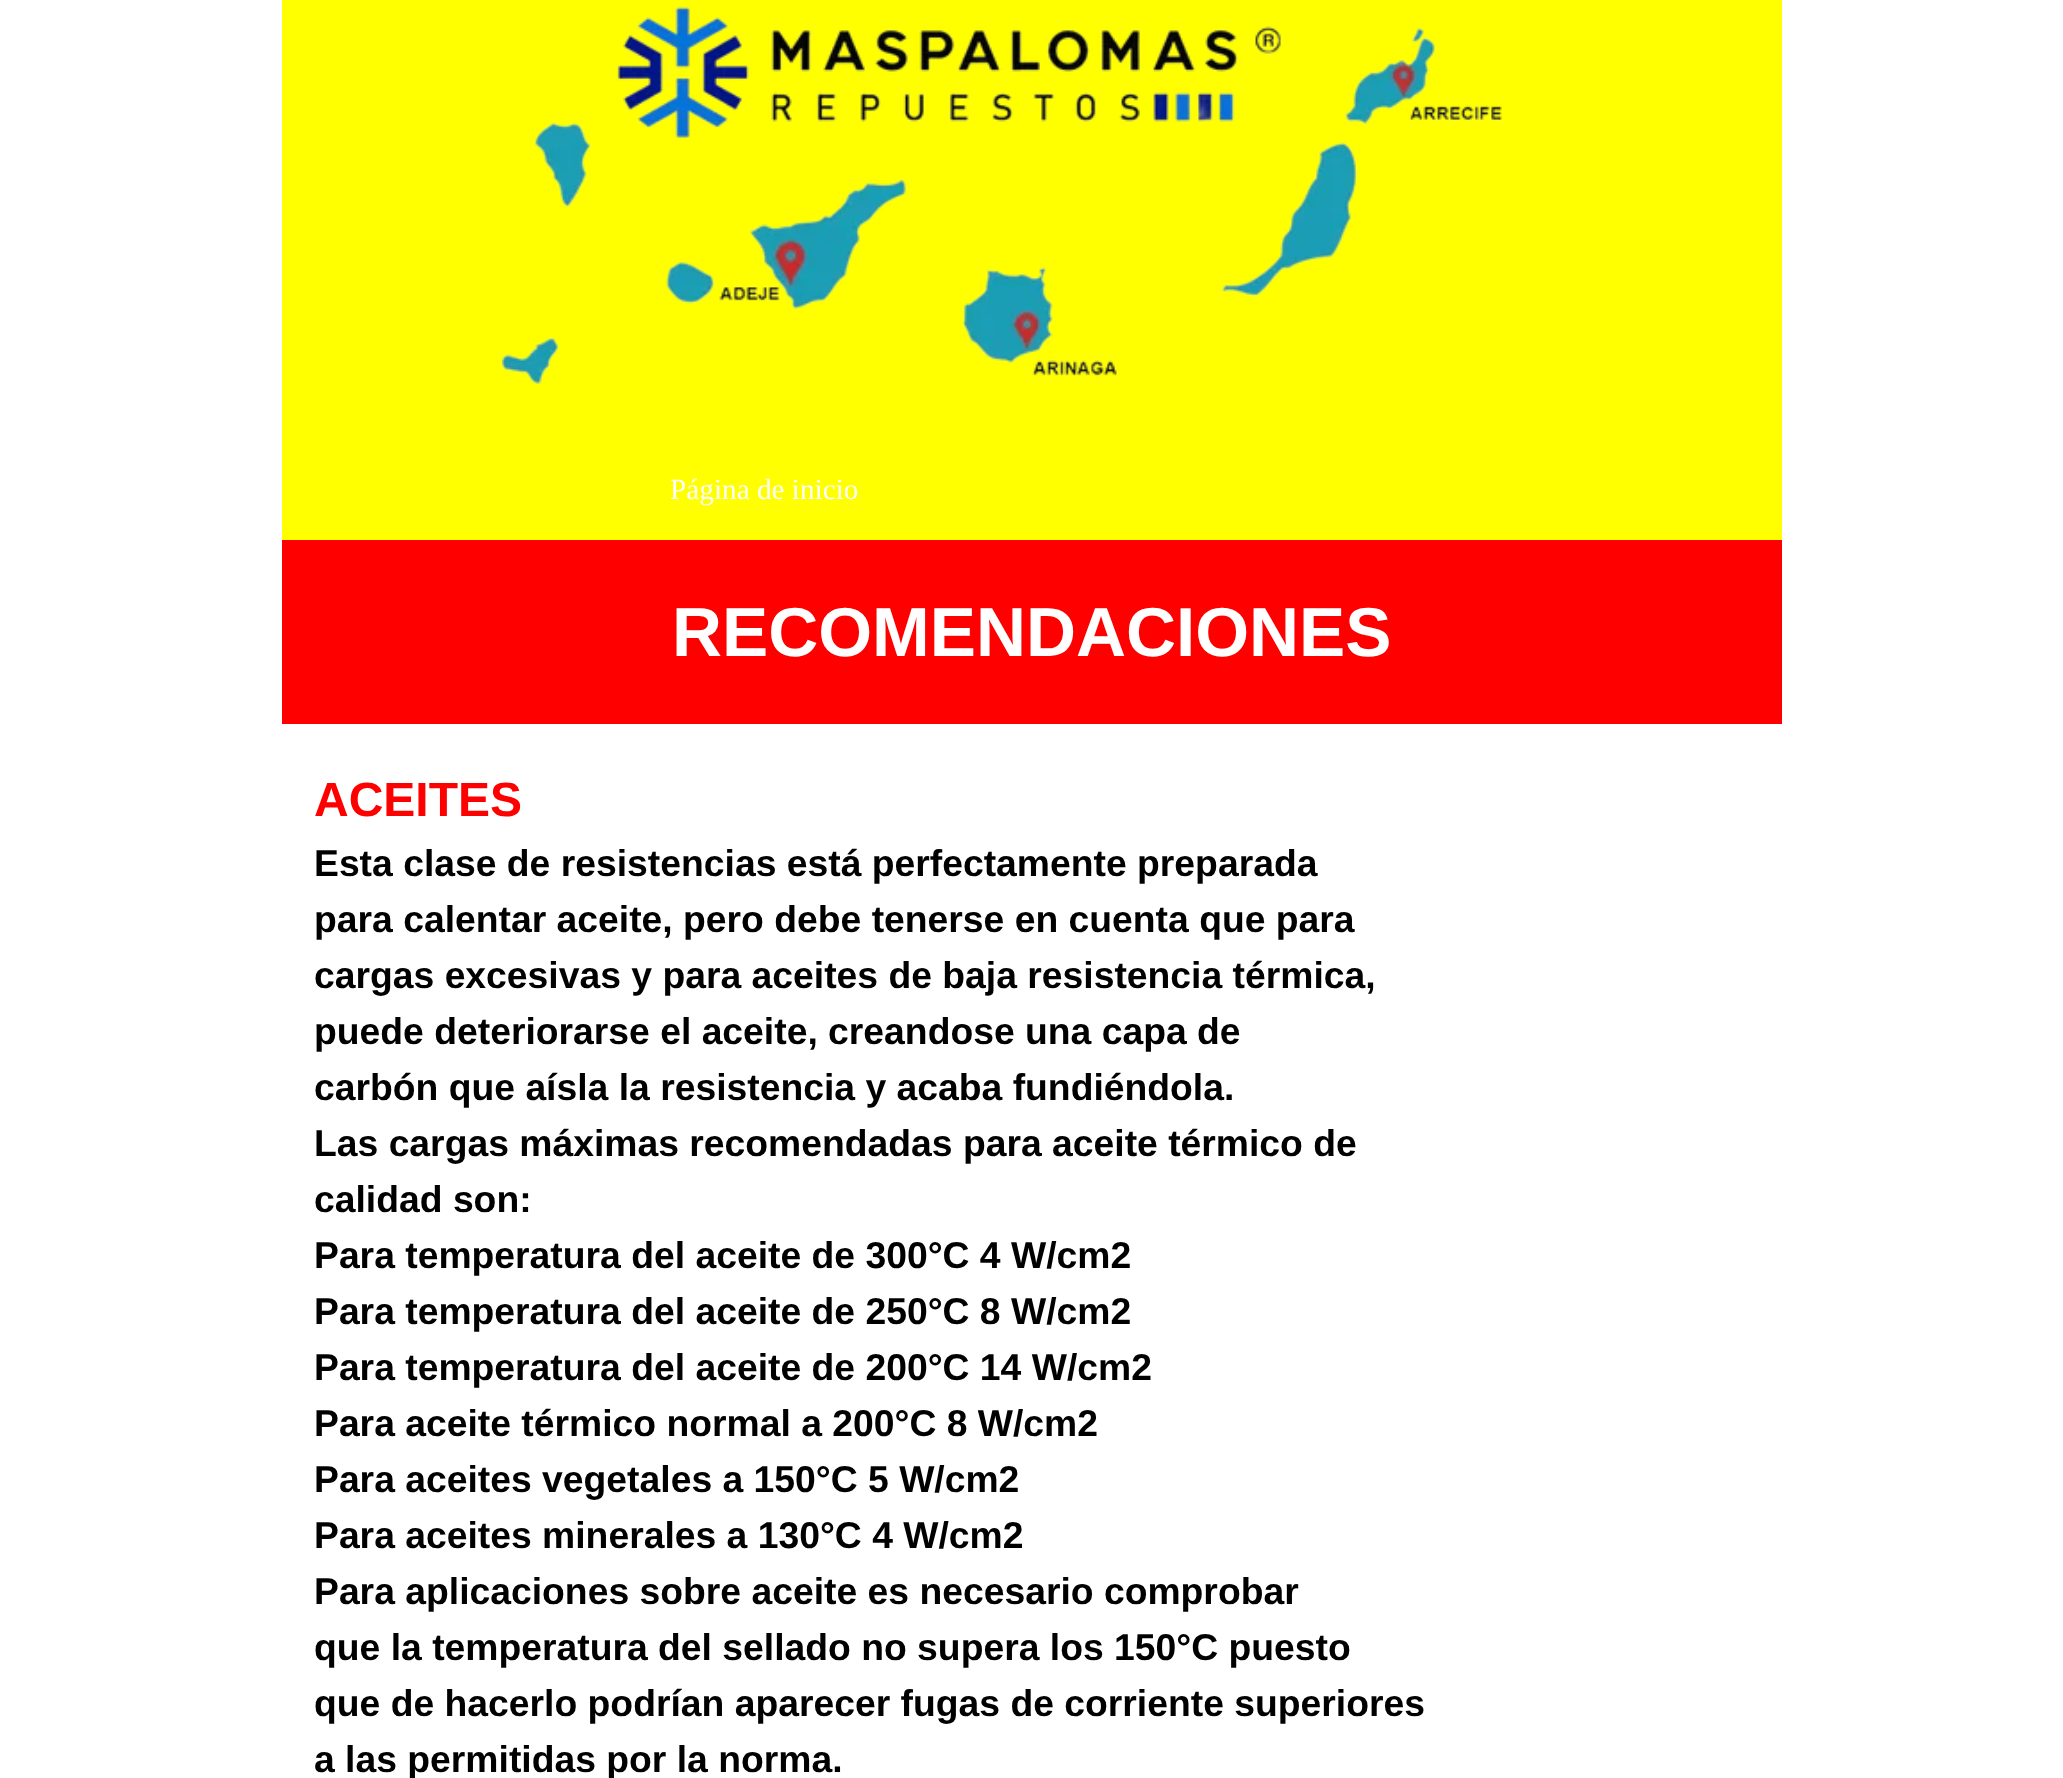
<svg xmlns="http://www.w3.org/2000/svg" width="2063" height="1778">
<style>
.a{font:29.25px Liberation Serif;fill:#fff}
.b{font:bold 69.25px Liberation Sans;fill:#fff}
.c{font:bold 48px Liberation Sans;fill:#f00}
.d{font:bold 37.3px Liberation Sans;fill:#000}
</style>
<rect width="100%" height="100%" fill="#fff"/>
<path fill="#ff0" d="M282 0h1500v540H282z"/>
<image href="1.png" x="502" y="6" width="1000" height="379"/>
<path fill="#f00" d="M282 540h1500v184H282z"/>
<text class="a" x="670" y="499">Página de inicio</text>
<text class="b" x="672" y="656">RECOMENDACIONES</text>
<text class="c" x="314" y="816">ACEITES</text>
<text class="d" x="314" y="876">Esta clase de resistencias está perfectamente preparada</text>
<text class="d" x="314" y="932">para calentar aceite, pero debe tenerse en cuenta que para</text>
<text class="d" x="314" y="988">cargas excesivas y para aceites de baja resistencia térmica,</text>
<text class="d" x="314" y="1044">puede deteriorarse el aceite, creandose una capa de</text>
<text class="d" x="314" y="1100">carbón que aísla la resistencia y acaba fundiéndola.</text>
<text class="d" x="314" y="1156">Las cargas máximas recomendadas para aceite térmico de</text>
<text class="d" x="314" y="1212">calidad son:</text>
<text class="d" x="314" y="1268">Para temperatura del aceite de 300°C 4 W/cm2</text>
<text class="d" x="314" y="1324">Para temperatura del aceite de 250°C 8 W/cm2</text>
<text class="d" x="314" y="1380">Para temperatura del aceite de 200°C 14 W/cm2</text>
<text class="d" x="314" y="1436">Para aceite térmico normal a 200°C 8 W/cm2</text>
<text class="d" x="314" y="1492">Para aceites vegetales a 150°C 5 W/cm2</text>
<text class="d" x="314" y="1548">Para aceites minerales a 130°C 4 W/cm2</text>
<text class="d" x="314" y="1604">Para aplicaciones sobre aceite es necesario comprobar</text>
<text class="d" x="314" y="1660">que la temperatura del sellado no supera los 150°C puesto</text>
<text class="d" x="314" y="1716">que de hacerlo podrían aparecer fugas de corriente superiores</text>
<text class="d" x="314" y="1772">a las permitidas por la norma.</text>
</svg>
